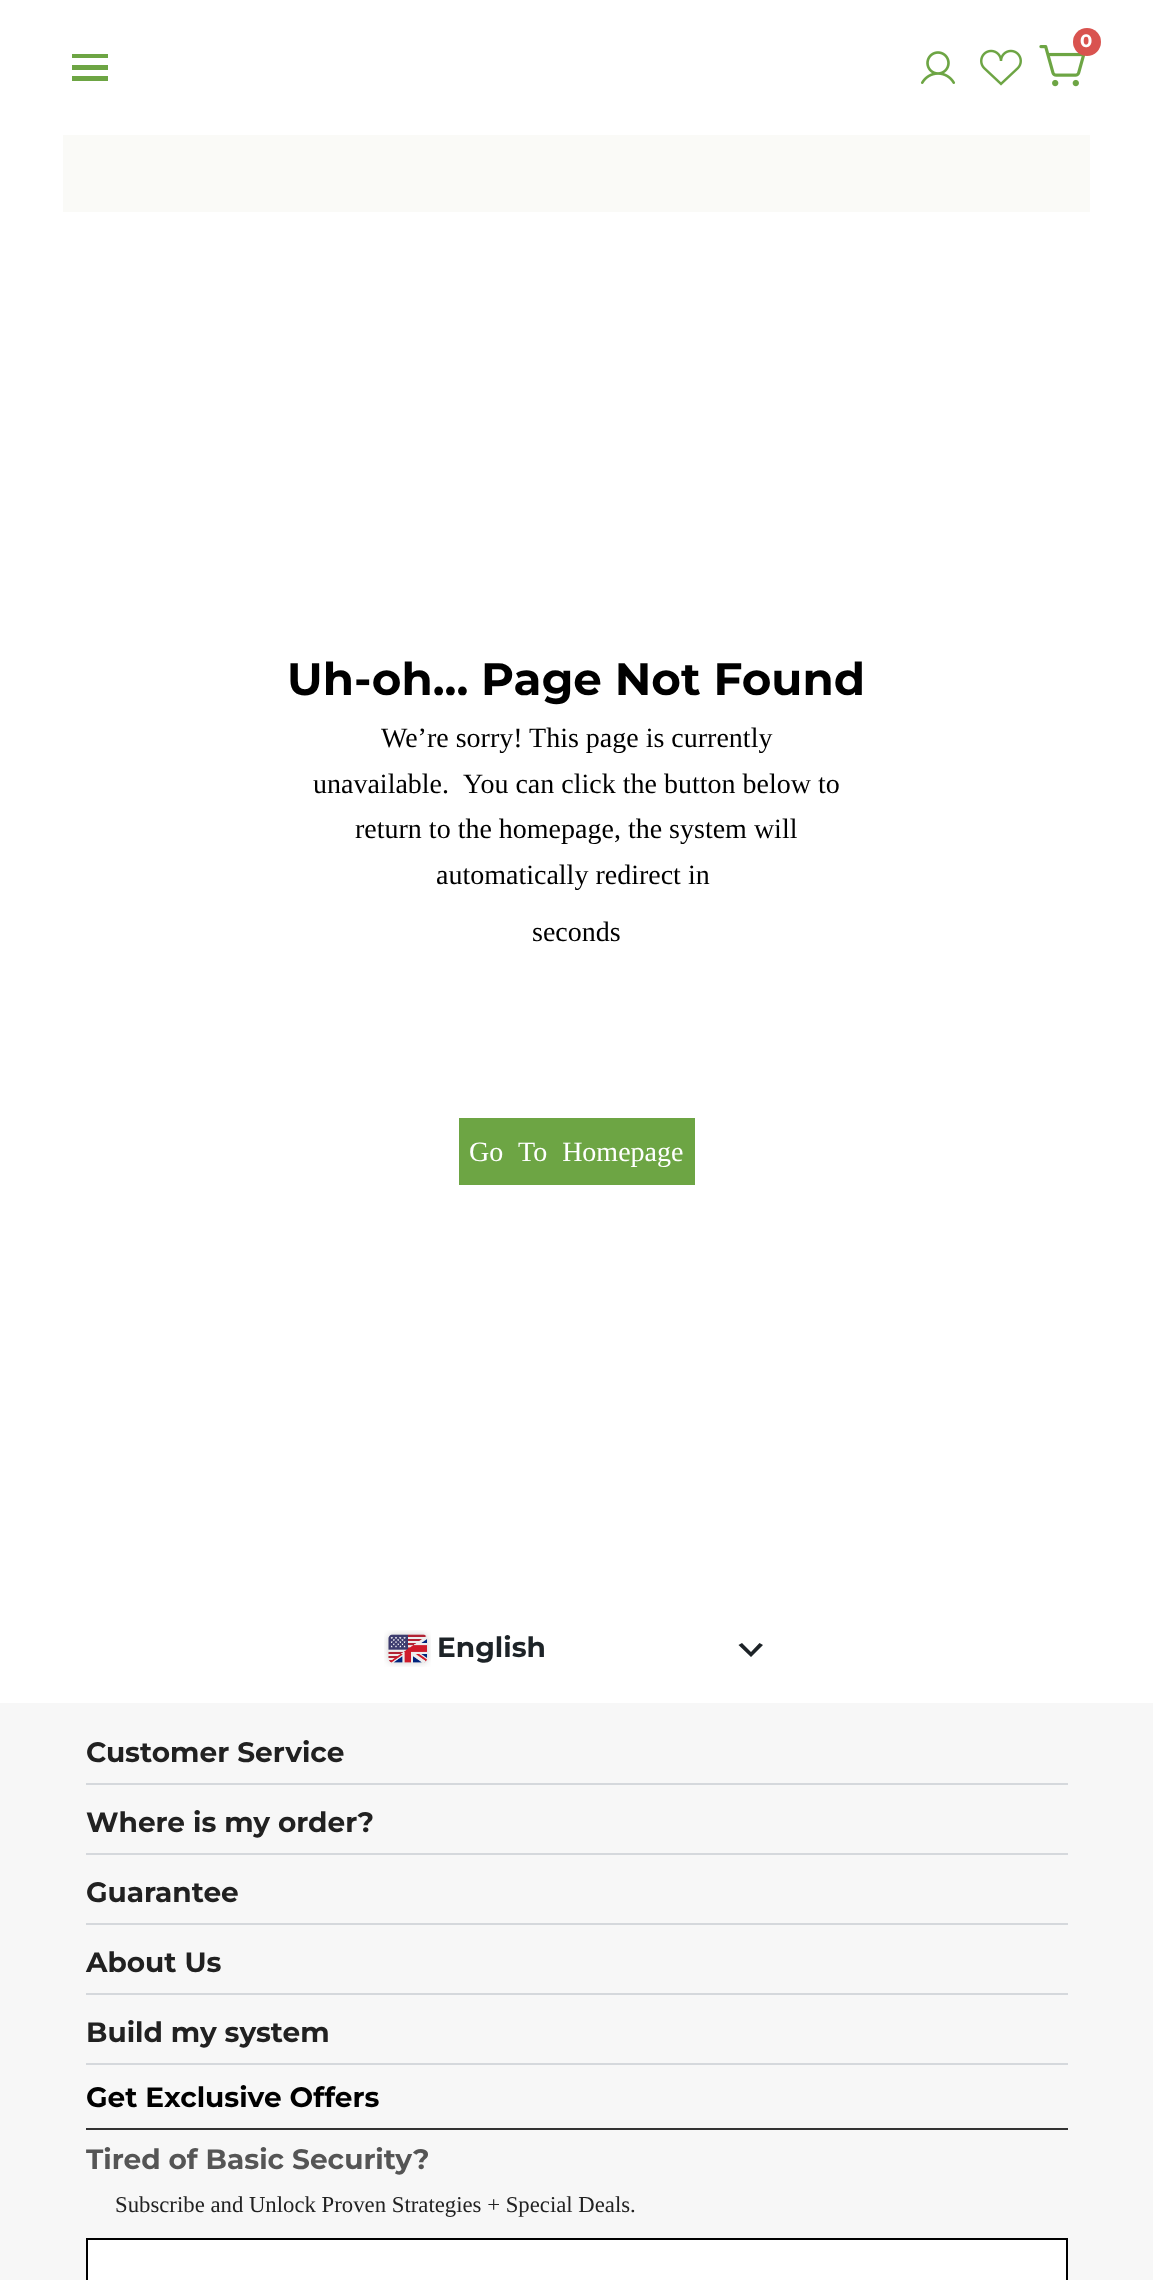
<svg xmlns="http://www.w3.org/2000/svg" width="1153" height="2280">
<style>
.a{font:bold 18px Montserrat;fill:#fff}
.b{font:bold 45.25px Montserrat;fill:#000}
.c{font:28px Liberation Serif;fill:#000}
.d{font:28px Liberation Serif;fill:#fff}
.e{font:bold 28px Montserrat;fill:#1d2327}
.f{font:bold 28px Montserrat;fill:#212121}
.g{font:bold 28px Montserrat;fill:#000}
.h{font:bold 28px Montserrat;fill:#555}
.i{font:22.75px Liberation Serif;fill:#212121}
</style>
<rect width="100%" height="100%" fill="#fff"/>
<image href="1.png" x="1039" y="45" width="47" height="42"/>
<circle fill="#d9534f" cx="1087" cy="42" r="14"/>
<image href="2.png" x="920" y="51" width="36" height="33"/>
<image href="3.png" x="980" y="49" width="42" height="37"/>
<path fill="#6da544" d="M72 54h36v4H72z"/>
<path fill="#6da544" d="M72 65h36v5H72z"/>
<path fill="#6da544" d="M72 76h36v5H72z"/>
<path fill="#fafaf7" d="M63 135h1027v77H63z"/>
<path fill="#6da544" d="M459 1118h236v67H459z"/>
<path fill="#1d2327" d="M742 1643l9 9l8.5-9l3.5 2l-12 12l-12.5-12z"/>
<image href="4.png" x="384" y="1630" width="47" height="37"/>
<path fill="#f7f7f7" d="M0 1703h1153v577H0z"/>
<path fill="#d5d8dc" d="M86 1783h982v2H86z"/>
<path fill="#d5d8dc" d="M86 1853h982v2H86z"/>
<path fill="#d5d8dc" d="M86 1923h982v2H86z"/>
<path fill="#d5d8dc" d="M86 1993h982v2H86z"/>
<path fill="#d5d8dc" d="M86 2063h982v2H86z"/>
<path fill="#333" d="M86 2128h982v2H86z"/>
<path fill="#fff" stroke="#000" stroke-width="2" d="M87 2239h980v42H87z"/>
<text class="a" x="1080" y="47">0</text>
<text class="b" x="287" y="695">Uh-oh... Page Not Found</text>
<text class="c" x="381" y="747">We’re sorry! This page is currently</text>
<text class="c" x="313" y="793">unavailable.</text>
<text class="c" x="463" y="793">You can click the button below to</text>
<text class="c" x="355" y="838">return to the homepage, the system will</text>
<text class="c" x="436" y="884">automatically redirect in</text>
<text class="c" x="532" y="941">seconds</text>
<text class="d" x="469" y="1161">Go</text>
<text class="d" x="518" y="1161" word-spacing="8">To Homepage</text>
<text class="e" x="437" y="1657">English</text>
<text class="f" x="86" y="1762">Customer Service</text>
<text class="f" x="86" y="1832">Where is my order?</text>
<text class="f" x="86" y="1902">Guarantee</text>
<text class="f" x="86" y="1972">About Us</text>
<text class="f" x="86" y="2042">Build my system</text>
<text class="g" x="86" y="2107">Get Exclusive Offers</text>
<text class="h" x="86" y="2169">Tired of Basic Security?</text>
<text class="i" x="115" y="2212">Subscribe and Unlock Proven Strategies + Special Deals.</text>
</svg>
